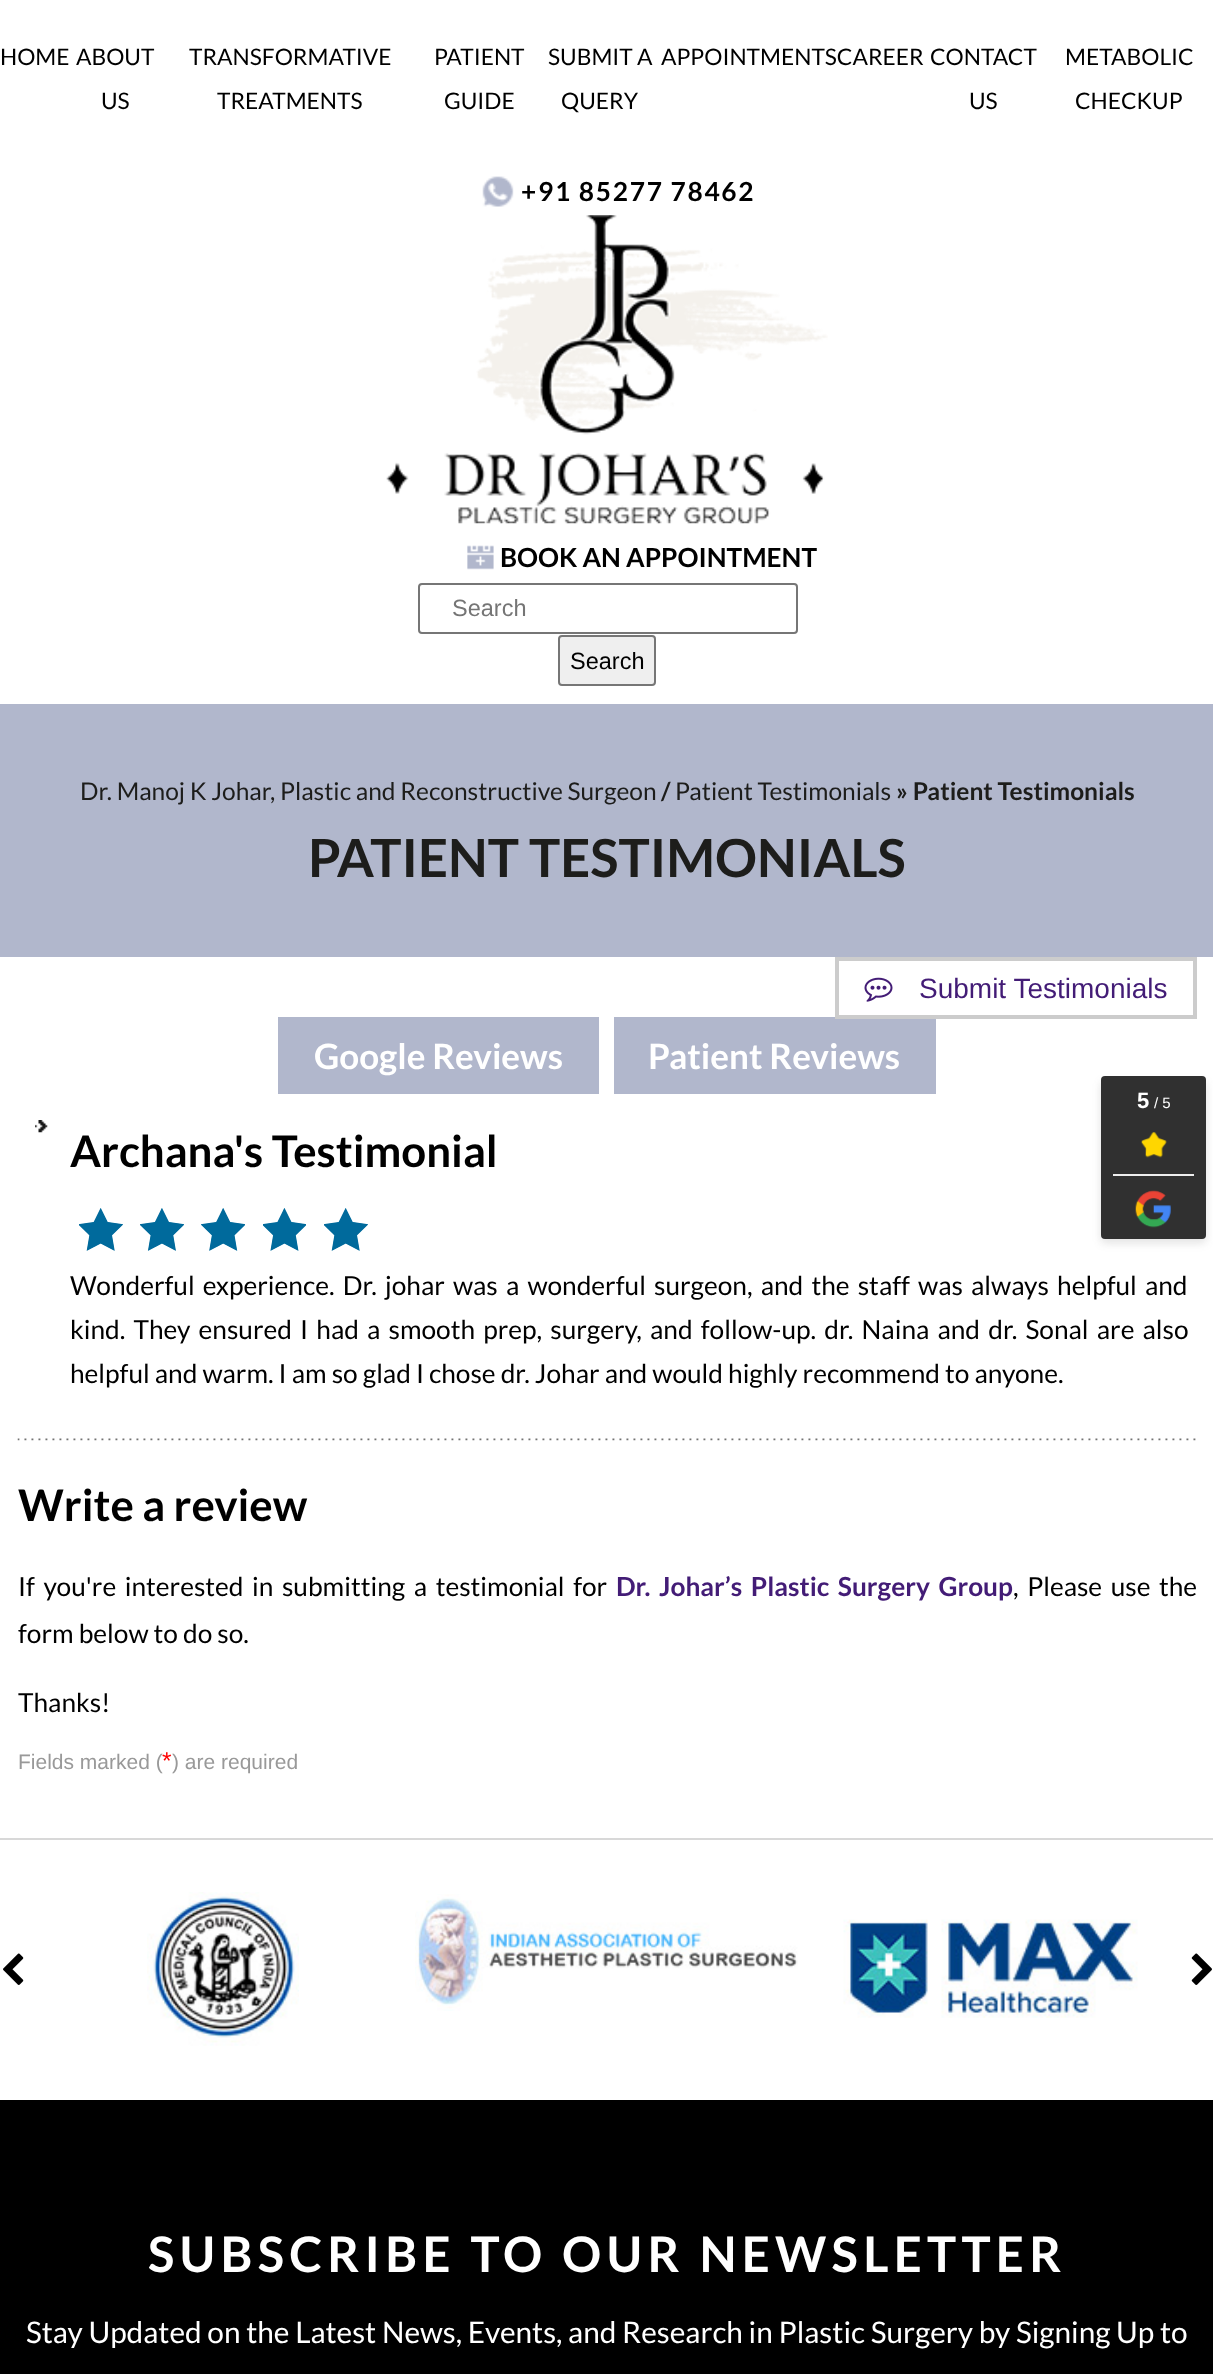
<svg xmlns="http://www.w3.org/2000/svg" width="1213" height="2374">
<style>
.a{font:22.75px Lato;fill:#000}
.b{font:bold 26.25px Lato;letter-spacing:1.75px;fill:#000}
.c{font:bold 26.25px Lato;fill:#000}
.d{font:23.5px Liberation Sans;fill:#757575}
.e{font:23.5px Liberation Sans;fill:#000}
.f{font:24.5px Lato;fill:#1d1d1b}
.g{font:bold 24.5px Lato;fill:#1d1d1b}
.h{font:bold 52.5px Lato;fill:#1d1d1b}
.i{font:28px Liberation Sans;fill:#431c76}
.j{font:bold 35px Lato;fill:#fff}
.k{font:bold 43.75px Lato;fill:#000}
.l{font:26.25px Lato;fill:#000}
.m{font:bold 26.25px Lato;fill:#431c76}
.n{font:21px Liberation Sans;fill:#999}
.o{font:24.5px Liberation Sans;fill:#f00}
.p{font:bold 49px Lato;letter-spacing:5.25px;fill:#fff}
.q{font:29.75px Lato;fill:#fff}
.r{font:bold 22px Liberation Sans;fill:#fff}
.s{font:15px Liberation Sans;fill:#fff}
</style>
<rect width="100%" height="100%" fill="#fff"/>
<image href="1.png" x="482" y="176" width="32" height="31"/>
<image href="2.png" x="386" y="215" width="442" height="309"/>
<image href="3.png" x="467" y="545" width="27" height="25"/>
<rect fill="none" stroke="#767676" stroke-width="2" x="419" y="584" width="378" height="49" rx="3"/>
<rect fill="#efefef" stroke="#767676" stroke-width="2" x="559" y="636" width="96" height="49" rx="3"/>
<path fill="#b1b7cc" d="M0 704h1213v253H0z"/>
<path fill="#b1b7cc" d="M614 1017h322v77H614z"/>
<path fill="none" stroke="#ccc" stroke-width="4" d="M837 959h358v58H837z"/>
<image href="4.png" x="864" y="977" width="29" height="25"/>
<path fill="#b1b7cc" d="M278 1017h321v77H278z"/>
<image href="5.png" x="35" y="1120" width="13" height="13"/>
<image href="6.png" x="79" y="1208" width="44" height="43"/>
<image href="7.png" x="140" y="1208" width="44" height="43"/>
<image href="8.png" x="201" y="1208" width="44" height="43"/>
<image href="9.png" x="263" y="1208" width="43" height="43"/>
<image href="6.png" x="324" y="1208" width="44" height="43"/>
<image href="10.png" x="17" y="1438" width="1179" height="3"/>
<path fill="#d8d8d8" d="M0 1838h1213v2H0z"/>
<image href="11.png" x="3" y="1953" width="21" height="32"/>
<image href="12.png" x="147" y="1892" width="152" height="154"/>
<image href="13.png" x="415" y="1894" width="383" height="117"/>
<image href="14.png" x="843" y="1919" width="295" height="99"/>
<image href="15.png" x="1191" y="1953" width="21" height="32"/>
<path fill="#000" d="M0 2100h1213v274H0z"/>
<rect fill="#48484829" filter="blur(4px)" x="1101" y="1082" width="105" height="161" rx="4"/>
<rect fill="#303030" x="1101" y="1076" width="105" height="163" rx="4"/>
<image href="16.png" x="1141" y="1132" width="26" height="26"/>
<path fill="#eee" d="M1113 1174h81v2H1113z"/>
<image href="17.png" x="1135" y="1190" width="36" height="38"/>
<text class="a" x="0" y="65">HOME</text>
<text class="a" x="76" y="65">ABOUT</text>
<text class="a" x="101" y="109">US</text>
<text class="a" x="189" y="65">TRANSFORMATIVE</text>
<text class="a" x="217" y="109">TREATMENTS</text>
<text class="a" x="434" y="65">PATIENT</text>
<text class="a" x="444" y="109">GUIDE</text>
<text class="a" x="548" y="65">SUBMIT A</text>
<text class="a" x="561" y="109">QUERY</text>
<text class="a" x="661" y="65">APPOINTMENTSCAREER</text>
<text class="a" x="930" y="65">CONTACT</text>
<text class="a" x="969" y="109">US</text>
<text class="a" x="1065" y="65">METABOLIC</text>
<text class="a" x="1075" y="109">CHECKUP</text>
<text class="b" x="521" y="201">+91 85277 78462</text>
<text class="c" x="500" y="567">BOOK AN APPOINTMENT</text>
<text class="d" x="452" y="616">Search</text>
<text class="e" x="570" y="669">Search</text>
<text class="f" x="80" y="800">Dr. Manoj K Johar, Plastic and Reconstructive Surgeon</text>
<text class="g" x="661" y="800">/</text>
<text class="f" x="675" y="800">Patient Testimonials</text>
<text class="g" x="896" y="800">» Patient Testimonials</text>
<text class="h" x="308" y="877">PATIENT TESTIMONIALS</text>
<text class="i" x="919" y="998">Submit Testimonials</text>
<text class="j" x="314" y="1069">Google Reviews</text>
<text class="j" x="648" y="1069">Patient Reviews</text>
<text class="k" x="70" y="1167">Archana's Testimonial</text>
<text class="l" x="70" y="1295" word-spacing="3.1">Wonderful experience. Dr. johar was a wonderful surgeon, and the staff was always helpful and</text>
<text class="l" x="70" y="1339" word-spacing="3.1">kind. They ensured I had a smooth prep, surgery, and follow-up. dr. Naina and dr. Sonal are also</text>
<text class="l" x="70" y="1383">helpful and warm. I am so glad I chose dr. Johar and would highly recommend to anyone.</text>
<text class="k" x="18" y="1521">Write a review</text>
<text class="l" x="18" y="1596" word-spacing="3.5">If you're interested in submitting a testimonial for</text>
<text class="m" x="616" y="1596" word-spacing="3.5">Dr. Johar’s Plastic Surgery Group</text>
<text class="l" x="1013" y="1596" word-spacing="3.5">, Please use the</text>
<text class="l" x="18" y="1643">form below to do so.</text>
<text class="l" x="18" y="1712">Thanks!</text>
<text class="n" x="18" y="1769">Fields marked (</text>
<text class="o" x="162" y="1769">*</text>
<text class="n" x="172" y="1769">) are required</text>
<text class="p" x="148" y="2272">SUBSCRIBE TO OUR NEWSLETTER</text>
<text class="q" x="26" y="2343">Stay Updated on the Latest News, Events, and Research in Plastic Surgery by Signing Up to</text>
<text class="r" x="1137" y="1108">5</text>
<text class="s" x="1154" y="1108">/ 5</text>
</svg>
